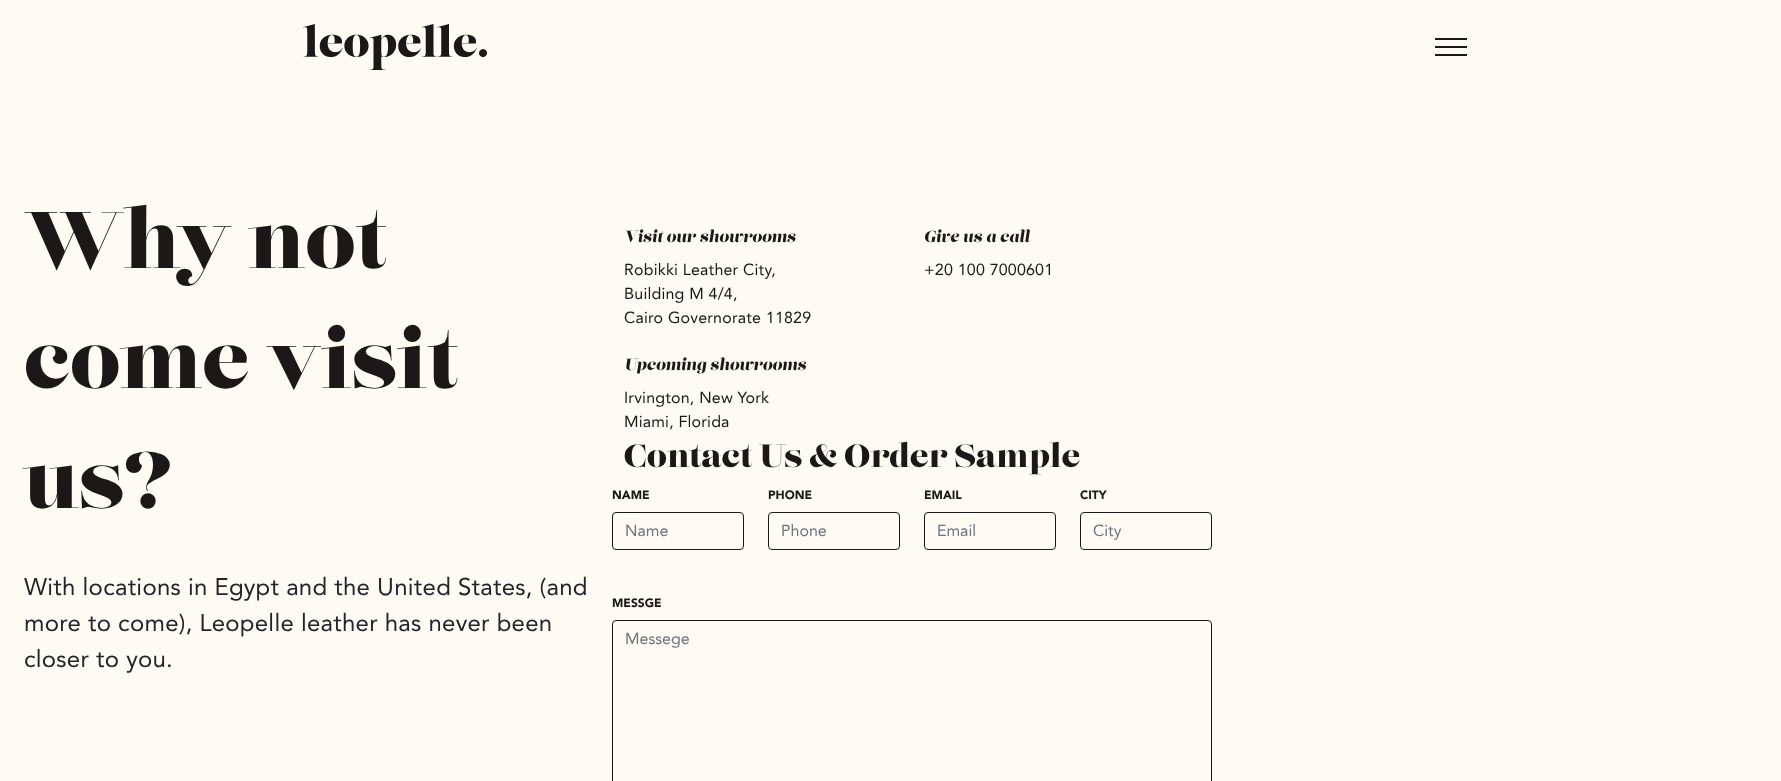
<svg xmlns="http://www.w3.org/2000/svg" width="1781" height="781">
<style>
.a{font:800 80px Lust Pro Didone;fill:#1d1818}
.b{font:24px Avenir;letter-spacing:0.25px;fill:#212529}
.c{font:italic 800 16px Lust Pro Didone;fill:#1d1818}
.d{font:16px Avenir;letter-spacing:0.2px;fill:#1d1818}
.e{font:800 32px Lust Pro Didone;fill:#1d1818}
.f{font:900 12px Avenir;fill:#1d1818}
.g{font:16px Avenir;fill:#6c757d}
</style>
<rect width="100%" height="100%" fill="#fffaf3"/>
<image href="1.png" x="303" y="24" width="184" height="46"/>
<path fill="#1d1818" d="M1435 38h32v2H1435z"/>
<path fill="#1d1818" d="M1435 46h32v2H1435z"/>
<path fill="#1d1818" d="M1435 54h32v2H1435z"/>
<rect fill="none" stroke="#1d1818" x="612.5" y="512.5" width="131" height="37" rx="3.5"/>
<rect fill="none" stroke="#1d1818" x="768.5" y="512.5" width="131" height="37" rx="3.5"/>
<rect fill="none" stroke="#1d1818" x="924.5" y="512.5" width="131" height="37" rx="3.5"/>
<rect fill="none" stroke="#1d1818" x="1080.5" y="512.5" width="131" height="37" rx="3.5"/>
<rect fill="none" stroke="#1d1818" x="612.5" y="620.5" width="599" height="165" rx="3.5"/>
<text class="a" x="24" y="268">Why not</text>
<text class="a" x="24" y="388">come visit</text>
<text class="a" x="24" y="508">us?</text>
<text class="b" x="24" y="595">With locations in Egypt and the United States, (and</text>
<text class="b" x="24" y="631">more to come), Leopelle leather has never been</text>
<text class="b" x="24" y="667">closer to you.</text>
<text class="c" x="624" y="242">Visit our showrooms</text>
<text class="d" x="624" y="275">Robikki Leather City,</text>
<text class="d" x="624" y="299">Building M 4/4,</text>
<text class="d" x="624" y="323">Cairo Governorate 11829</text>
<text class="c" x="624" y="370">Upcoming showrooms</text>
<text class="d" x="624" y="403">Irvington, New York</text>
<text class="d" x="624" y="427">Miami, Florida</text>
<text class="c" x="924" y="242">Give us a call</text>
<text class="d" x="924" y="275">+20 100 7000601</text>
<text class="e" x="624" y="467">Contact Us &amp; Order Sample</text>
<text class="f" x="612" y="499">NAME</text>
<text class="g" x="625" y="536">Name</text>
<text class="f" x="768" y="499">PHONE</text>
<text class="g" x="781" y="536">Phone</text>
<text class="f" x="924" y="499">EMAIL</text>
<text class="g" x="937" y="536">Email</text>
<text class="f" x="1080" y="499">CITY</text>
<text class="g" x="1093" y="536">City</text>
<text class="f" x="612" y="607">MESSGE</text>
<text class="g" x="625" y="644">Messege</text>
</svg>
